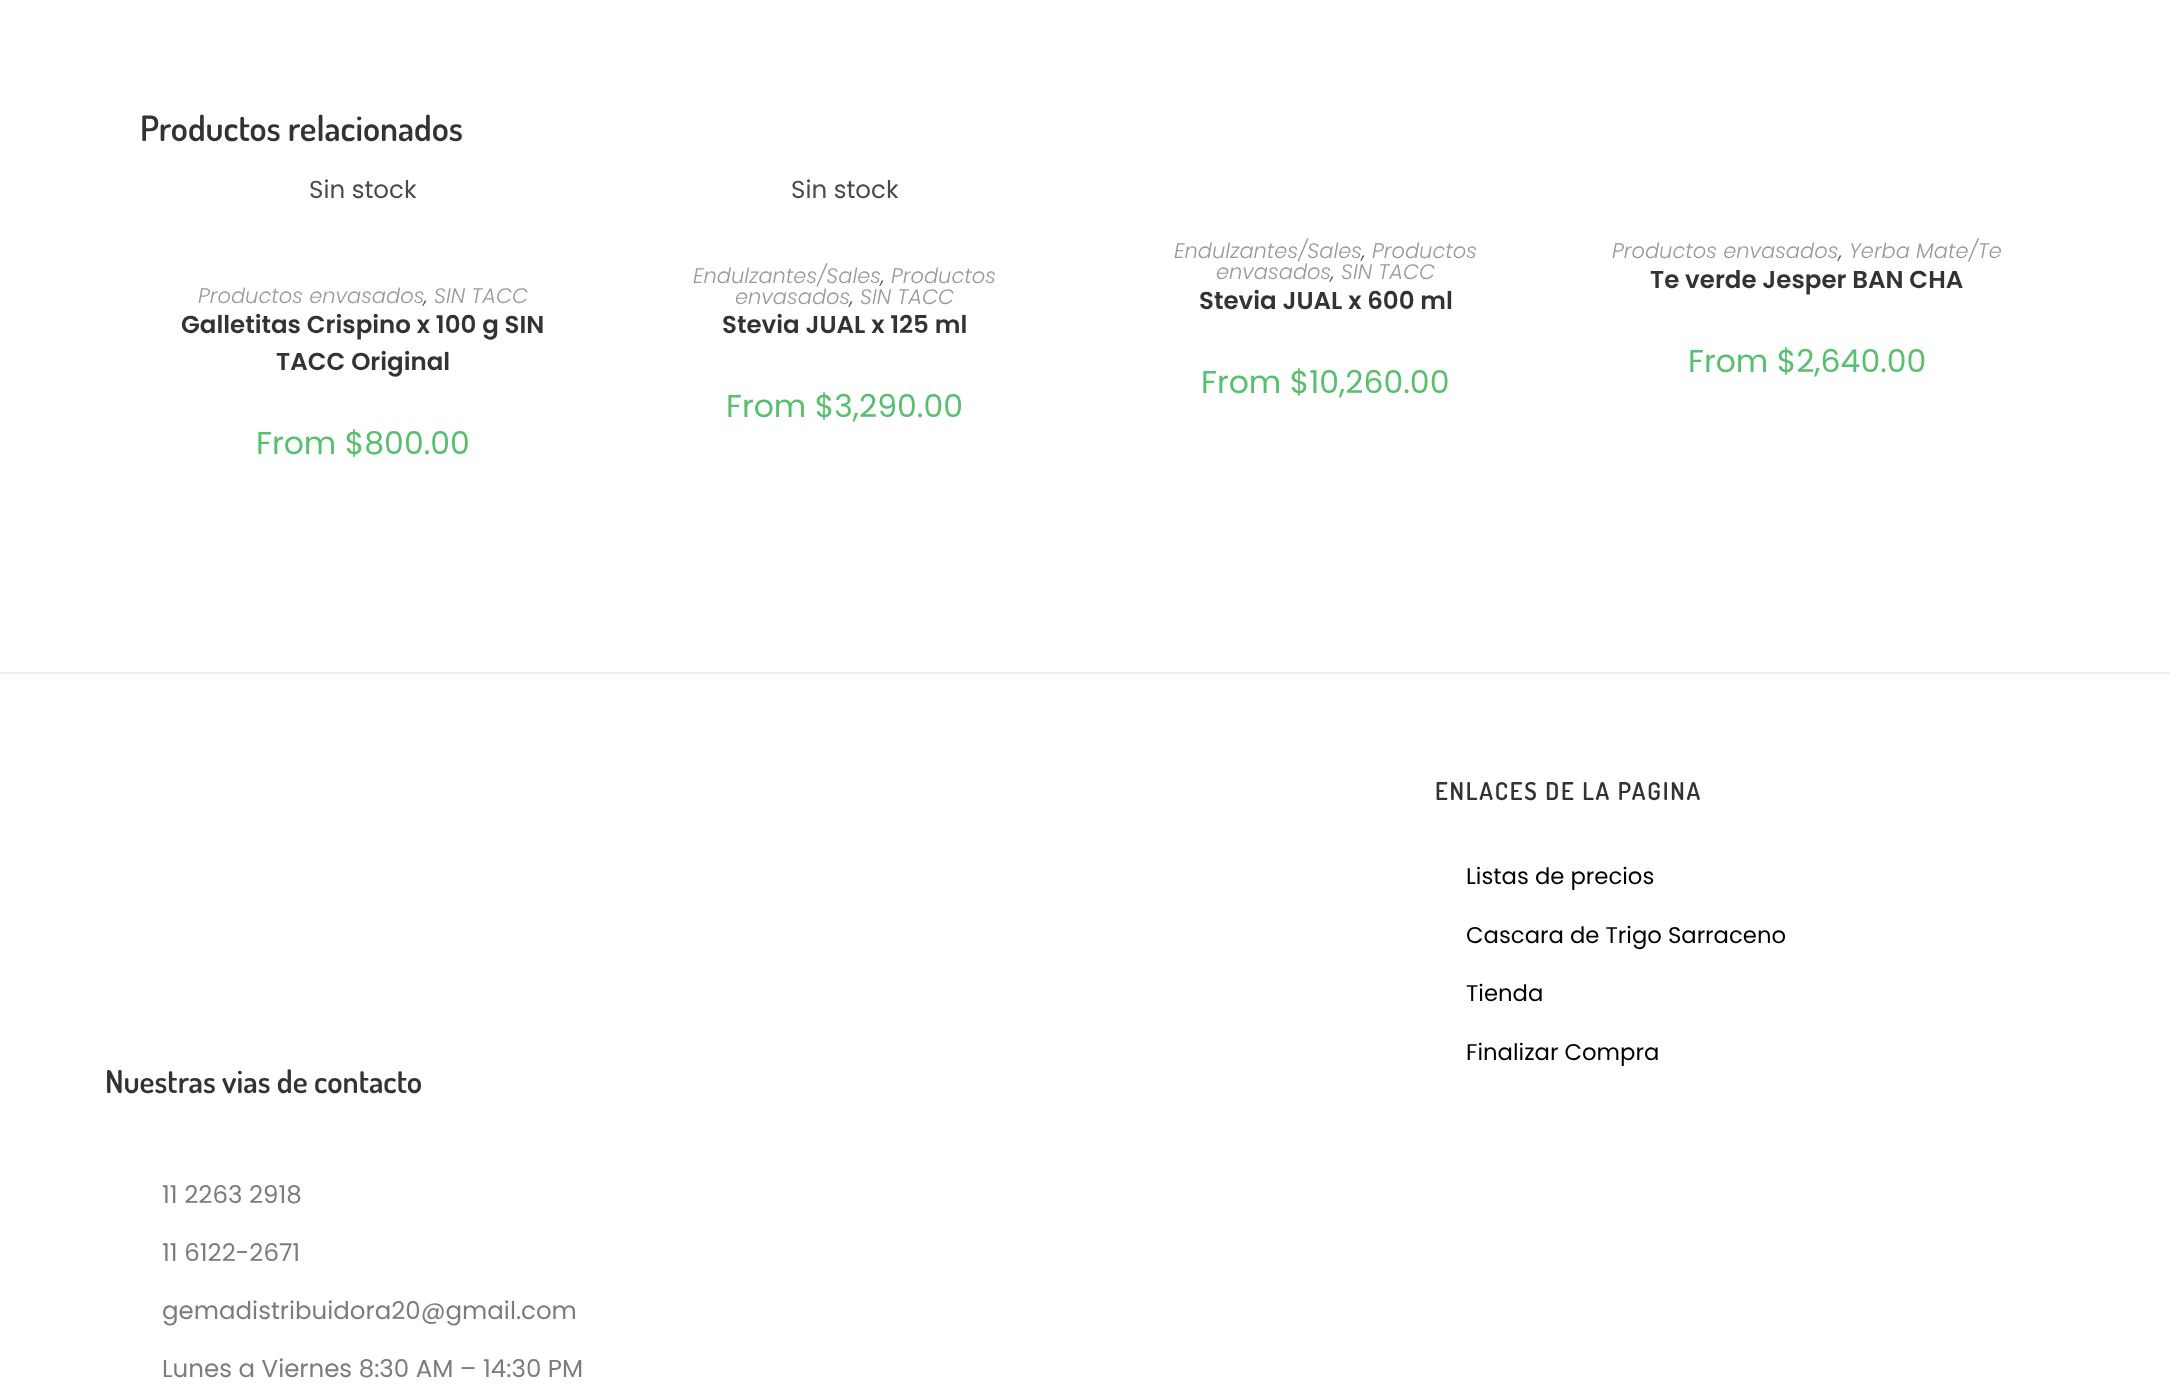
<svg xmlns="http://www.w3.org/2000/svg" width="2170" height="1384">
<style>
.a{font:600 35px Dosis;fill:#333}
.b{font:24.5px Poppins;fill:#4a4a4a}
.c{font:italic 300 21px Poppins;fill:#999}
.d{font:italic 300 21px Poppins;fill:#4a4a4a}
.e{font:600 24.5px Poppins;fill:#333}
.f{font:31.5px Poppins;fill:#57bf6d}
.g{font:600 24.5px Dosis;letter-spacing:1.75px;fill:#333}
.h{font:22.75px Poppins;fill:#000}
.i{font:600 31.5px Dosis;fill:#333}
.j{font:24.5px Poppins;fill:#7c7c7c}
</style>
<rect width="100%" height="100%" fill="#fff"/>
<path fill="#eee" d="M0 672h2170v2H0z"/>
<text class="a" x="140" y="141">Productos relacionados</text>
<text class="b" x="309" y="198">Sin stock</text>
<path fill="none" stroke="#fff" stroke-width="1.8" d="M341 236.5c-12.5-12.5-12.5-33.5 0-46"/>
<text class="c" x="198" y="303">Productos envasados</text>
<text class="d" x="424" y="303">,</text>
<text class="c" x="434" y="303">SIN TACC</text>
<text class="e" x="181" y="333">Galletitas Crispino x 100 g SIN</text>
<text class="e" x="276" y="370">TACC Original</text>
<text class="f" x="256" y="454">From $800.00</text>
<text class="b" x="791" y="198">Sin stock</text>
<text class="c" x="693" y="283">Endulzantes/Sales</text>
<text class="d" x="881" y="283">,</text>
<text class="c" x="891" y="283">Productos</text>
<text class="c" x="735" y="304">envasados</text>
<text class="d" x="850" y="304">,</text>
<text class="c" x="860" y="304">SIN TACC</text>
<text class="e" x="722" y="333">Stevia JUAL x 125 ml</text>
<text class="f" x="726" y="417">From $3,290.00</text>
<text class="c" x="1174" y="258">Endulzantes/Sales</text>
<text class="d" x="1362" y="258">,</text>
<text class="c" x="1372" y="258">Productos</text>
<text class="c" x="1216" y="279">envasados</text>
<text class="d" x="1331" y="279">,</text>
<text class="c" x="1341" y="279">SIN TACC</text>
<text class="e" x="1199" y="309">Stevia JUAL x 600 ml</text>
<text class="f" x="1201" y="393">From $10,260.00</text>
<text class="c" x="1612" y="258">Productos envasados</text>
<text class="d" x="1839" y="258">,</text>
<text class="c" x="1849" y="258">Yerba Mate/Te</text>
<text class="e" x="1650" y="288">Te verde Jesper BAN CHA</text>
<text class="f" x="1688" y="372">From $2,640.00</text>
<text class="g" x="1435" y="800">ENLACES DE LA PAGINA</text>
<text class="h" x="1466" y="884">Listas de precios</text>
<text class="h" x="1466" y="943">Cascara de Trigo Sarraceno</text>
<text class="h" x="1466" y="1001">Tienda</text>
<text class="h" x="1466" y="1060">Finalizar Compra</text>
<text class="i" x="105" y="1093">Nuestras vias de contacto</text>
<text class="j" x="162" y="1203">11 2263 2918</text>
<text class="j" x="162" y="1261">11 6122-2671</text>
<text class="j" x="162" y="1319">gemadistribuidora20@gmail.com</text>
<text class="j" x="162" y="1377">Lunes a Viernes 8:30 AM – 14:30 PM</text>
</svg>
